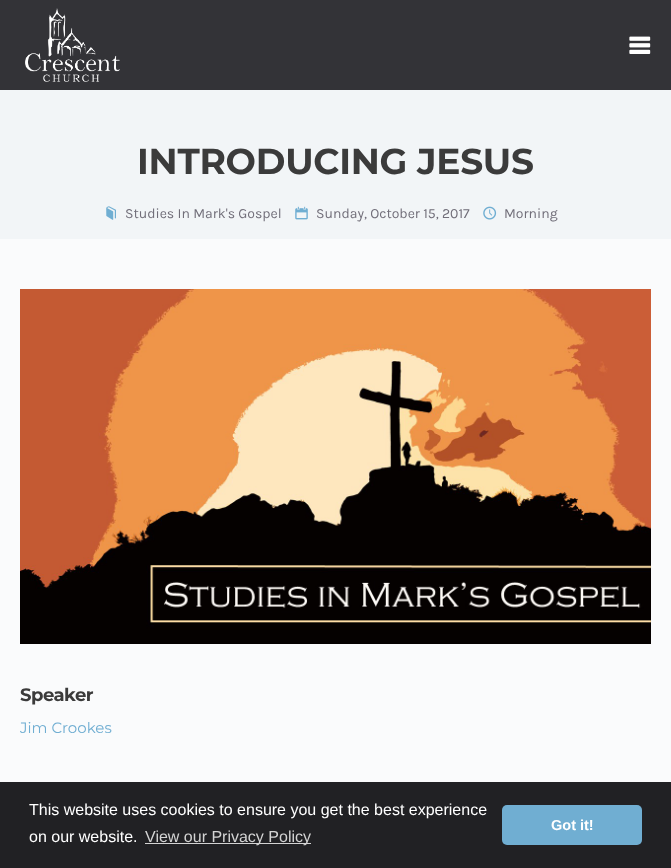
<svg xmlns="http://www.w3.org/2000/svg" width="671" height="868">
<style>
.a{font:bold 36px Montserrat;letter-spacing:-0.25px;fill:#3b3b3b}
.b{font:14px Karla;fill:#716e79}
.c{font:bold 18px Montserrat;letter-spacing:-0.5px;fill:#3b3b3b}
.d{font:15px Montserrat;fill:#70aed2}
.e{font:16px Liberation Sans;fill:#fff}
.f{font:16px Liberation Sans;fill:#d3d3d3}
.g{font:bold 14.5px Liberation Sans;fill:#fff}
</style>
<rect width="100%" height="100%" fill="#fafbfc"/>
<path fill="#333337" d="M0 0h671v90H0z"/>
<image href="1.png" x="25" y="8" width="95" height="74"/>
<image href="2.png" x="629" y="36" width="22" height="18"/>
<path fill="#f2f5f7" d="M0 90h671v149H0z"/>
<image href="3.png" x="106" y="206" width="10" height="14"/>
<image href="4.png" x="295" y="206" width="13" height="14"/>
<image href="5.png" x="483" y="206" width="14" height="14"/>
<image href="6.png" x="20" y="289" width="631" height="355"/>
<path fill="#212124" d="M0 782h671v86H0z"/>
<path fill="#d3d3d3" d="M145 843h166v1H145z"/>
<rect fill="#70aed2" x="502" y="805" width="140" height="40" rx="5"/>
<text class="a" x="137" y="174">INTRODUCING JESUS</text>
<text class="b" x="125" y="218">Studies In Mark's Gospel</text>
<text class="b" x="316" y="218">Sunday, October 15, 2017</text>
<text class="b" x="504" y="218">Morning</text>
<text class="c" x="20" y="701">Speaker</text>
<text class="d" x="20" y="733">Jim Crookes</text>
<text class="e" x="29" y="815">This website uses cookies to ensure you get the best experience</text>
<text class="e" x="29" y="842">on our website.</text>
<text class="f" x="145" y="842">View our Privacy Policy</text>
<text class="g" x="551" y="830">Got it!</text>
</svg>
